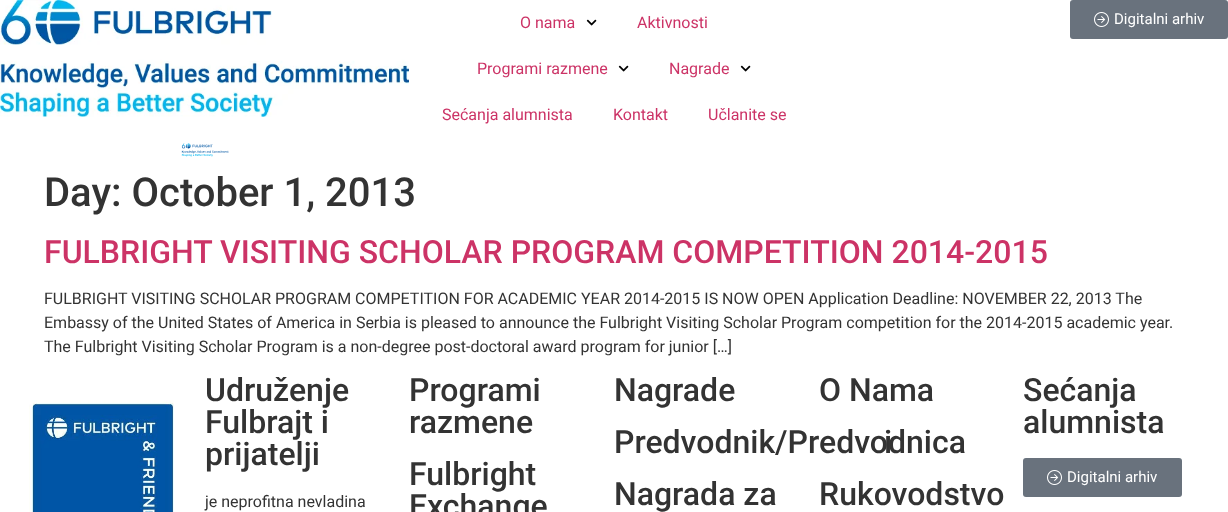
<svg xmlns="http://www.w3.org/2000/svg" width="1228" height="512">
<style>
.a{font:16px Roboto;fill:#c36}
.b{font:15px Roboto;fill:#fff}
.c{font:500 40px Roboto;fill:#333}
.d{font:500 32px Roboto;fill:#c36}
.e{font:16px Roboto;fill:#333}
.f{font:500 32px Roboto;fill:#333}
</style>
<rect width="100%" height="100%" fill="#fff"/>
<image href="1.png" x="0" y="0" width="409" height="117"/>
<image href="2.png" x="181" y="143" width="48" height="14"/>
<image href="3.png" x="586" y="19" width="11" height="7"/>
<image href="3.png" x="618" y="65" width="11" height="7"/>
<image href="3.png" x="740" y="65" width="11" height="7"/>
<rect fill="#69727d" x="1070" width="158" height="39" rx="3"/>
<image href="4.png" x="1094" y="12" width="15" height="15"/>
<image href="5.png" x="29" y="400" width="145" height="112"/>
<rect fill="#69727d" x="1023" y="458" width="159" height="39" rx="3"/>
<image href="4.png" x="1047" y="470" width="15" height="15"/>
<text class="a" x="520" y="28">O nama</text>
<text class="a" x="637" y="28">Aktivnosti</text>
<text class="a" x="477" y="74">Programi razmene</text>
<text class="a" x="669" y="74">Nagrade</text>
<text class="a" x="442" y="120">Sećanja alumnista</text>
<text class="a" x="613" y="120">Kontakt</text>
<text class="a" x="708" y="120">Učlanite se</text>
<text class="b" x="1114" y="24">Digitalni arhiv</text>
<text class="c" x="44" y="206">Day: October 1, 2013</text>
<text class="d" x="44" y="263">FULBRIGHT VISITING SCHOLAR PROGRAM COMPETITION 2014-2015</text>
<text class="e" x="44" y="304">FULBRIGHT VISITING SCHOLAR PROGRAM COMPETITION FOR ACADEMIC YEAR 2014-2015 IS NOW OPEN Application Deadline: NOVEMBER 22, 2013 The</text>
<text class="e" x="44" y="328">Embassy of the United States of America in Serbia is pleased to announce the Fulbright Visiting Scholar Program competition for the 2014-2015 academic year.</text>
<text class="e" x="44" y="352">The Fulbright Visiting Scholar Program is a non-degree post-doctoral award program for junior […]</text>
<text class="f" x="205" y="401">Udruženje</text>
<text class="f" x="205" y="433">Fulbrajt i</text>
<text class="f" x="205" y="465">prijatelji</text>
<text class="e" x="205" y="507">je neprofitna nevladina</text>
<text class="f" x="409" y="401">Programi</text>
<text class="f" x="409" y="433">razmene</text>
<text class="f" x="409" y="485">Fulbright</text>
<text class="f" x="409" y="517">Exchange</text>
<text class="f" x="614" y="401">Nagrade</text>
<text class="f" x="614" y="453">Predvodnik/Predvodnica</text>
<text class="f" x="614" y="505">Nagrada za</text>
<text class="f" x="819" y="401">O Nama</text>
<text class="f" x="884" y="453">i</text>
<text class="f" x="819" y="505">Rukovodstvo</text>
<text class="f" x="1023" y="401">Sećanja</text>
<text class="f" x="1023" y="433">alumnista</text>
<text class="b" x="1067" y="482">Digitalni arhiv</text>
</svg>
